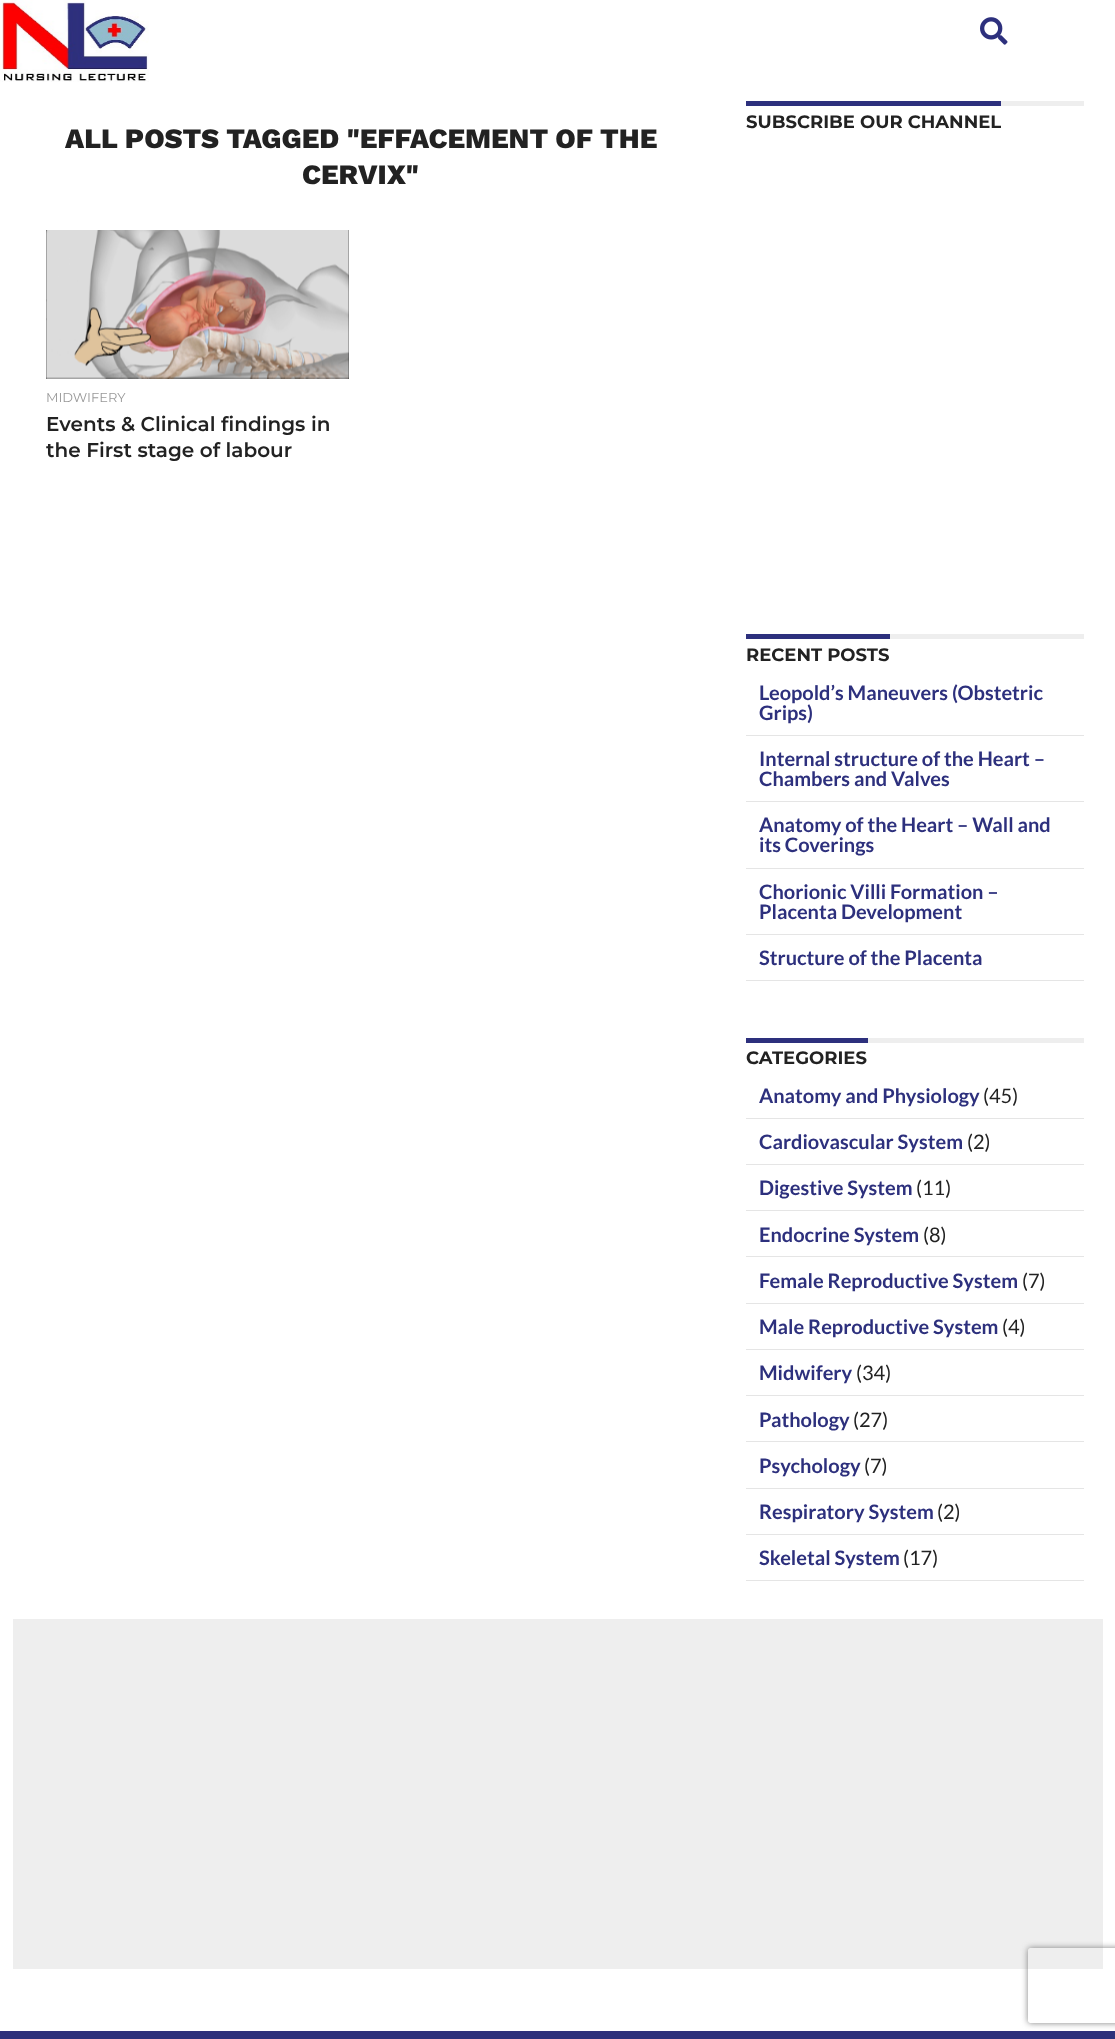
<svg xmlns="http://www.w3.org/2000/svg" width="1115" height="2039">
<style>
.a{font:800 28px Work Sans;fill:#222}
.b{font:13px Montserrat;fill:#999}
.c{font:600 20px Montserrat;fill:#222}
.d{font:bold 18px Montserrat;fill:#222}
.e{font:bold 20px Lato;fill:#2d307d}
.f{font:20px Lato;fill:#222}
</style>
<defs>
<clipPath id="clip1"><path d="M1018 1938h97v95h-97zm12.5 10h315c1.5 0 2.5 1 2.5 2.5v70c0 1.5-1 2.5-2.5 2.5h-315c-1.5 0-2.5-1-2.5-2.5v-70c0-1.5 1-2.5 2.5-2.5z" clip-rule="evenodd"/></clipPath>
</defs>
<rect width="100%" height="100%" fill="#fff"/>
<image href="1.png" x="0" y="0" width="149" height="82"/>
<image href="2.png" x="980" y="17" width="28" height="28"/>
<path fill="#000" d="M46 230h303v149H46z"/>
<image href="3.png" x="46" y="230" width="303" height="149"/>
<path fill="#eee" d="M1001 101h83v5H1001z"/>
<path fill="#2d307d" d="M746 101h255v5H746z"/>
<path fill="#eee" d="M890 634h194v5H890z"/>
<path fill="#2d307d" d="M746 634h144v5H746z"/>
<path fill="#e5e5e5" d="M746 735h338v1H746z"/>
<path fill="#e5e5e5" d="M746 801h338v1H746z"/>
<path fill="#e5e5e5" d="M746 868h338v1H746z"/>
<path fill="#e5e5e5" d="M746 934h338v1H746z"/>
<path fill="#e5e5e5" d="M746 980h338v1H746z"/>
<path fill="#eee" d="M868 1038h216v5H868z"/>
<path fill="#2d307d" d="M746 1038h122v5H746z"/>
<path fill="#e5e5e5" d="M746 1118h338v1H746z"/>
<path fill="#e5e5e5" d="M746 1164h338v1H746z"/>
<path fill="#e5e5e5" d="M746 1210h338v1H746z"/>
<path fill="#e5e5e5" d="M746 1256h338v1H746z"/>
<path fill="#e5e5e5" d="M746 1303h338v1H746z"/>
<path fill="#e5e5e5" d="M746 1349h338v1H746z"/>
<path fill="#e5e5e5" d="M746 1395h338v1H746z"/>
<path fill="#e5e5e5" d="M746 1441h338v1H746z"/>
<path fill="#e5e5e5" d="M746 1488h338v1H746z"/>
<path fill="#e5e5e5" d="M746 1534h338v1H746z"/>
<path fill="#e5e5e5" d="M746 1580h338v1H746z"/>
<path fill="#eee" d="M13 1619h1090v350H13z"/>
<path fill="#2d307b" d="M0 2031h1115v8H0z"/>
<g clip-path="url(#clip1)">
<rect fill="#808080" filter="blur(3px)" x="1028" y="1948" width="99" height="75" rx="2.5"/>
</g>
<text class="a" x="65" y="148">ALL POSTS TAGGED "EFFACEMENT OF THE</text>
<text class="a" x="302" y="184">CERVIX"</text>
<text class="b" x="46" y="402">MIDWIFERY</text>
<text class="c" x="46" y="431">Events &amp; Clinical findings in</text>
<text class="c" x="46" y="457">the First stage of labour</text>
<text class="d" x="746" y="128">SUBSCRIBE OUR CHANNEL</text>
<text class="d" x="746" y="661">RECENT POSTS</text>
<text class="e" x="759" y="700">Leopold’s Maneuvers (Obstetric</text>
<text class="e" x="759" y="720">Grips)</text>
<text class="e" x="759" y="766">Internal structure of the Heart –</text>
<text class="e" x="759" y="786">Chambers and Valves</text>
<text class="e" x="759" y="832">Anatomy of the Heart – Wall and</text>
<text class="e" x="759" y="852">its Coverings</text>
<text class="e" x="759" y="899">Chorionic Villi Formation –</text>
<text class="e" x="759" y="919">Placenta Development</text>
<text class="e" x="759" y="965">Structure of the Placenta</text>
<text class="d" x="746" y="1064">CATEGORIES</text>
<text class="e" x="759" y="1103">Anatomy and Physiology</text>
<text class="f" x="983" y="1103">(45)</text>
<text class="e" x="759" y="1149">Cardiovascular System</text>
<text class="f" x="967" y="1149">(2)</text>
<text class="e" x="759" y="1195">Digestive System</text>
<text class="f" x="916" y="1195">(11)</text>
<text class="e" x="759" y="1242">Endocrine System</text>
<text class="f" x="923" y="1242">(8)</text>
<text class="e" x="759" y="1288">Female Reproductive System</text>
<text class="f" x="1022" y="1288">(7)</text>
<text class="e" x="759" y="1334">Male Reproductive System</text>
<text class="f" x="1002" y="1334">(4)</text>
<text class="e" x="759" y="1380">Midwifery</text>
<text class="f" x="856" y="1380">(34)</text>
<text class="e" x="759" y="1427">Pathology</text>
<text class="f" x="853" y="1427">(27)</text>
<text class="e" x="759" y="1473">Psychology</text>
<text class="f" x="864" y="1473">(7)</text>
<text class="e" x="759" y="1519">Respiratory System</text>
<text class="f" x="937" y="1519">(2)</text>
<text class="e" x="759" y="1565">Skeletal System</text>
<text class="f" x="903" y="1565">(17)</text>
</svg>
